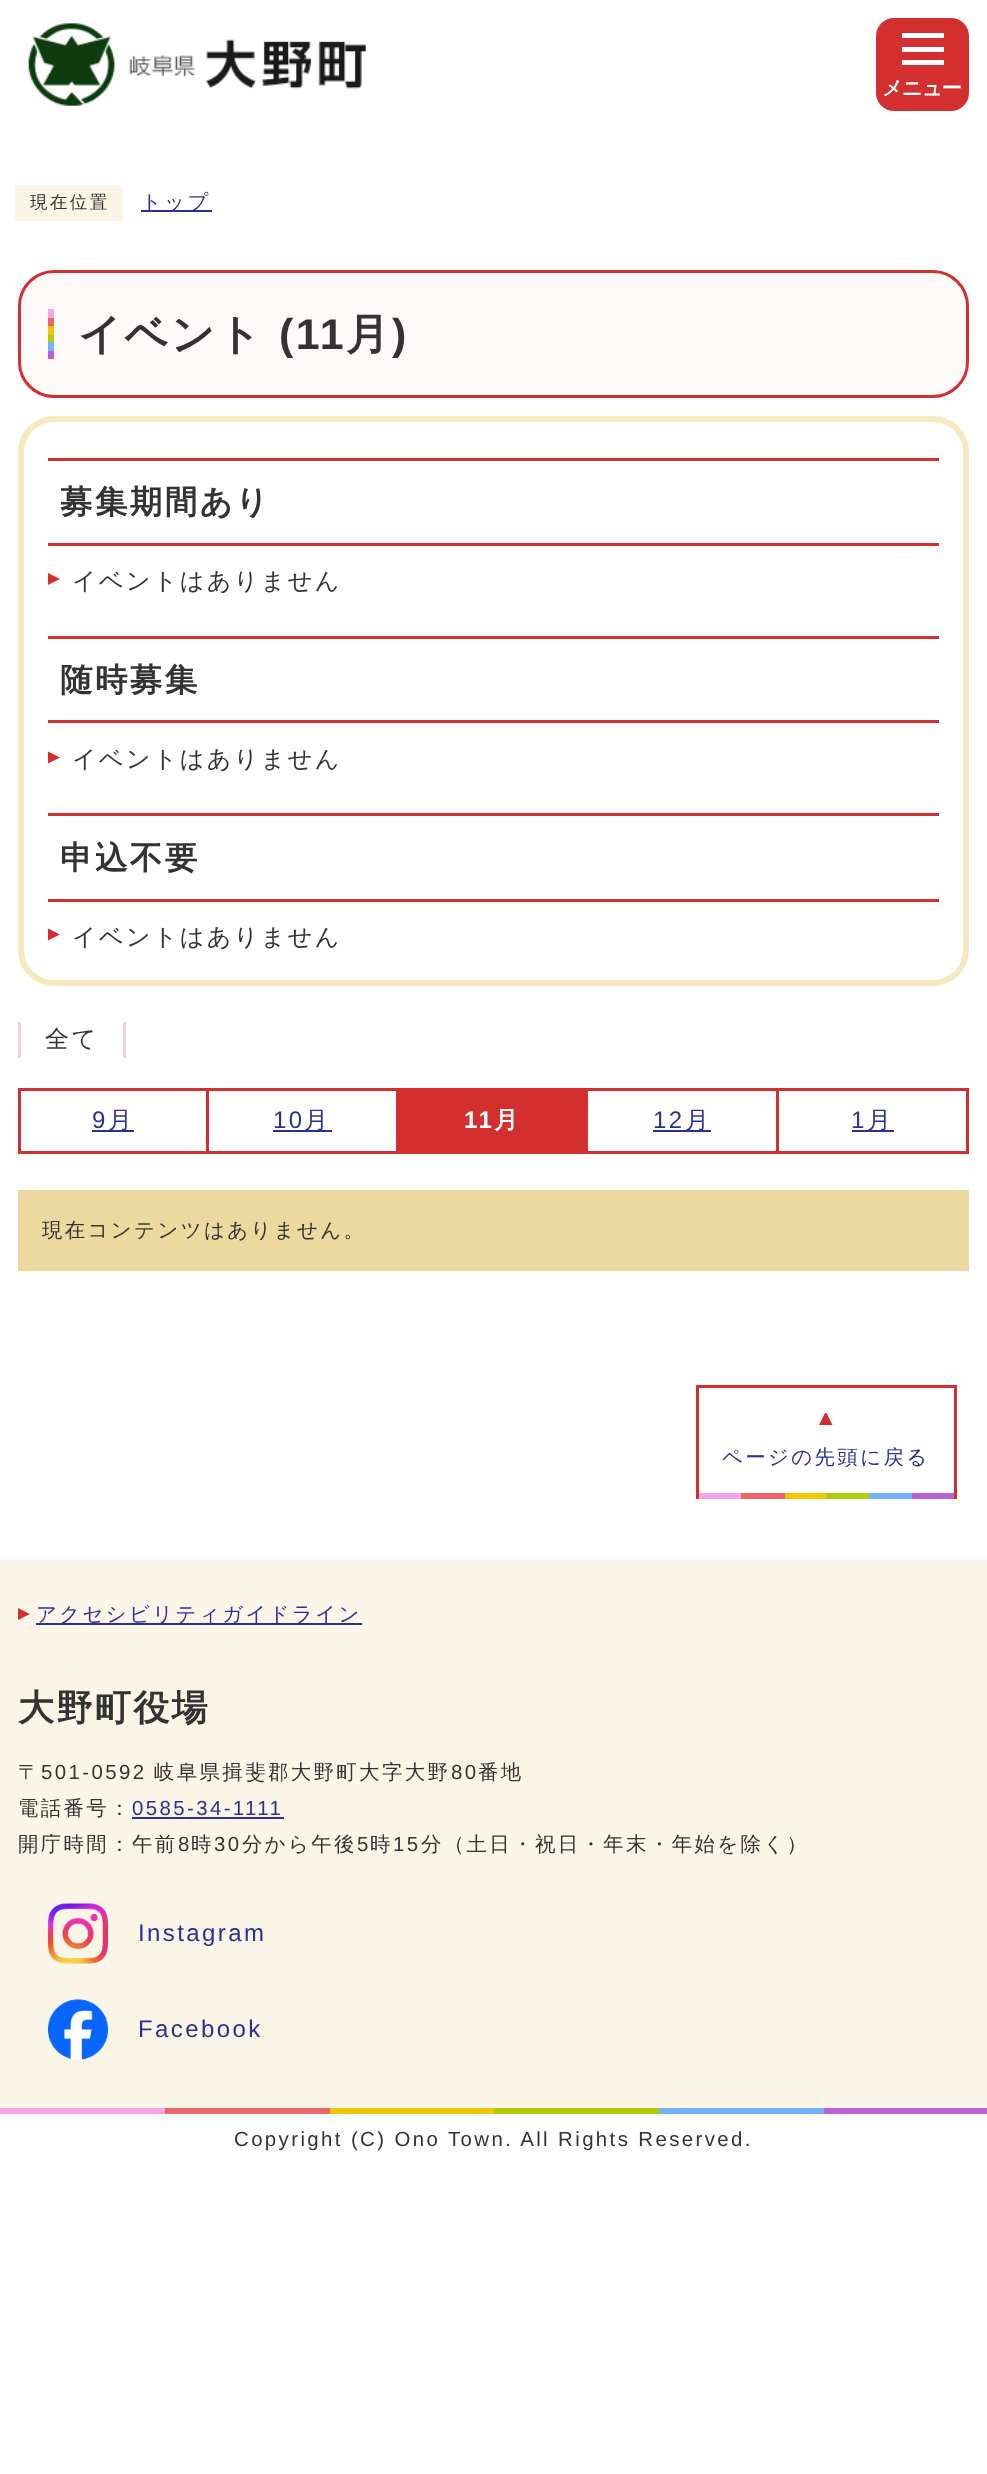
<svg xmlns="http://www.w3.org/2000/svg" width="987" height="2474">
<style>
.a{font:bold 20.4px WenQuanYi Zen Hei;letter-spacing:-1px;fill:#fff}
.b{font:500 17.5px WenQuanYi Zen Hei;letter-spacing:2.4px;fill:#333}
.c{font:500 20.4px WenQuanYi Zen Hei;letter-spacing:2.4px;fill:#2b3095}
.d{font:bold 43px WenQuanYi Zen Hei;letter-spacing:2.4px;fill:#333}
.e{font:bold 43px Liberation Sans;letter-spacing:2.4px;fill:#333}
.f{font:bold 32.5px WenQuanYi Zen Hei;letter-spacing:2.4px;fill:#333}
.g{font:500 24px WenQuanYi Zen Hei;letter-spacing:2.4px;fill:#333}
.h{font:24px Liberation Sans;letter-spacing:2.4px;fill:#2b3095}
.i{font:500 24px WenQuanYi Zen Hei;letter-spacing:2.4px;fill:#2b3095}
.j{font:bold 24px Liberation Sans;letter-spacing:2.4px;fill:#fff}
.k{font:bold 24px WenQuanYi Zen Hei;letter-spacing:2.4px;fill:#fff}
.l{font:500 20.4px WenQuanYi Zen Hei;letter-spacing:2.4px;fill:#333}
.m{font:bold 36px WenQuanYi Zen Hei;letter-spacing:2.4px;fill:#333}
.n{font:20.4px Liberation Sans;letter-spacing:2.4px;fill:#333}
.o{font:20.4px Liberation Sans;letter-spacing:2.4px;fill:#2b3095}
</style>
<rect width="100%" height="100%" fill="#fff"/>
<image href="1.png" x="28" y="23" width="338" height="83"/>
<rect fill="#d42f2f" x="876" y="18" width="93" height="93" rx="18"/>
<path fill="#fff" d="M902 33h42v5H902z"/>
<path fill="#fff" d="M902 47h42v5H902z"/>
<path fill="#fff" d="M902 60h42v5H902z"/>
<rect fill="#faf5e5" x="15" y="185" width="108" height="36" rx="3"/>
<path fill="#2b3095" d="M141 210h71v2H141z"/>
<rect fill="#fef9f9" stroke="#d42f2f" stroke-width="3" x="19.5" y="271.5" width="948" height="125" rx="34.5"/>
<path fill="#f5a6e6" d="M48 309h6v9H48z"/>
<path fill="#eb6767" d="M48 318h6v8H48z"/>
<path fill="#f0c505" d="M48 326h6v9H48z"/>
<path fill="#afcc08" d="M48 335h6v7H48z"/>
<path fill="#73b2fa" d="M48 342h6v9H48z"/>
<path fill="#b763d6" d="M48 351h6v8H48z"/>
<rect fill="none" stroke="#f7e9bf" stroke-width="6" x="21" y="419" width="945" height="564" rx="33"/>
<path fill="#d42f2f" d="M48 458h891v3H48z"/>
<path fill="#d42f2f" d="M48 543h891v3H48z"/>
<path fill="#d42f2f" d="M48 585v-12l12 6z"/>
<path fill="#d42f2f" d="M48 636h891v3H48z"/>
<path fill="#d42f2f" d="M48 720h891v3H48z"/>
<path fill="#d42f2f" d="M48 763.5v-12l12 6z"/>
<path fill="#d42f2f" d="M48 813h891v3H48z"/>
<path fill="#d42f2f" d="M48 899h891v3H48z"/>
<path fill="#d42f2f" d="M48 940.5v-12l12 6z"/>
<path fill="#fccfcf" d="M123 1022h3v36H123z"/>
<path fill="#fccfcf" d="M18 1022h3v36H18z"/>
<path fill="none" stroke="#d42f2f" stroke-width="3" d="M19.5 1089.5h188v63H19.5z"/>
<path fill="#2b3095" d="M92 1130h42v2H92z"/>
<path fill="#d42f2f" d="M209 1088h190v3H209z"/>
<path fill="#d42f2f" d="M396 1088h192v66H396z"/>
<path fill="#d42f2f" d="M209 1151h190v3H209z"/>
<path fill="#2b3095" d="M273 1130h59v2H273z"/>
<path fill="#d42f2f" d="M588 1088h381v3H588z"/>
<path fill="#d42f2f" d="M776 1088h3v66H776z"/>
<path fill="#d42f2f" d="M588 1151h191v3H588z"/>
<path fill="#2b3095" d="M653 1130h58v2H653z"/>
<path fill="#d42f2f" d="M966 1088h3v66H966z"/>
<path fill="#d42f2f" d="M779 1151h190v3H779z"/>
<path fill="#2b3095" d="M852 1130h42v2H852z"/>
<path fill="#ebd9a0" d="M18 1190h951v81H18z"/>
<path fill="#d42f2f" d="M696 1385h261v3H696z"/>
<path fill="#d42f2f" d="M954 1385h3v114H954z"/>
<path fill="#d42f2f" d="M696 1385h3v114H696z"/>
<path fill="#d42f2f" d="M832.5 1425h-13.5l6-12h1.5z"/>
<path fill="#f5a6e6" d="M699 1493h42v6H699z"/>
<path fill="#eb6767" d="M741 1493h44v6H741z"/>
<path fill="#f0c505" d="M785 1493h42v6H785z"/>
<path fill="#afcc08" d="M827 1493h42v6H827z"/>
<path fill="#73b2fa" d="M869 1493h43v6H869z"/>
<path fill="#b763d6" d="M912 1493h42v6H912z"/>
<path fill="#faf5e6" d="M0 1559h987v549H0z"/>
<path fill="#d42f2f" d="M18 1620v-12l12 6z"/>
<path fill="#2b3095" d="M36 1623h326v2H36z"/>
<path fill="#2b3095" d="M132 1817h152v2H132z"/>
<image href="2.png" x="48" y="1903" width="60" height="61"/>
<image href="3.png" x="48" y="1999" width="60" height="61"/>
<path fill="#f5a6e6" d="M0 2108h165v6H0z"/>
<path fill="#eb6767" d="M165 2108h165v6H165z"/>
<path fill="#f0c505" d="M330 2108h164v6H330z"/>
<path fill="#afcc08" d="M494 2108h165v6H494z"/>
<path fill="#73b2fa" d="M659 2108h165v6H659z"/>
<path fill="#b763d6" d="M824 2108h163v6H824z"/>
<text class="a" x="882" y="95">メニュー</text>
<text class="b" x="30" y="208">現在位置</text>
<text class="c" x="141" y="209">トップ</text>
<text class="d" x="78" y="349">イベント</text>
<text class="e" x="279" y="349">(11</text>
<text class="d" x="346" y="349">月</text>
<text class="e" x="392" y="349">)</text>
<text class="f" x="60" y="513">募集期間あり</text>
<text class="g" x="72" y="589">イベントはありません</text>
<text class="f" x="60" y="691">随時募集</text>
<text class="g" x="72" y="767">イベントはありません</text>
<text class="f" x="60" y="869">申込不要</text>
<text class="g" x="72" y="945">イベントはありません</text>
<text class="g" x="45" y="1047">全て</text>
<text class="h" x="92" y="1128">9</text>
<text class="i" x="108" y="1128">月</text>
<text class="h" x="273" y="1128">10</text>
<text class="i" x="304" y="1128">月</text>
<text class="j" x="464" y="1128">11</text>
<text class="k" x="494" y="1128">月</text>
<text class="h" x="653" y="1128">12</text>
<text class="i" x="685" y="1128">月</text>
<text class="h" x="851" y="1128">1</text>
<text class="i" x="867" y="1128">月</text>
<text class="l" x="42" y="1237">現在コンテンツはありません。</text>
<text class="c" x="722" y="1464">ページの先頭に戻る</text>
<text class="c" x="36" y="1621">アクセシビリティガイドライン</text>
<text class="m" x="18" y="1720">大野町役場</text>
<text class="l" x="18" y="1779">〒</text>
<text class="n" x="41" y="1779">501-0592</text>
<text class="l" x="154" y="1779">岐阜県揖斐郡大野町大字大野</text>
<text class="n" x="451" y="1779">80</text>
<text class="l" x="478" y="1779">番地</text>
<text class="l" x="18" y="1815">電話番号：</text>
<text class="o" x="132" y="1815">0585-34-1111</text>
<text class="l" x="18" y="1851">開庁時間：午前</text>
<text class="n" x="178" y="1851">8</text>
<text class="l" x="191" y="1851">時</text>
<text class="n" x="214" y="1851">30</text>
<text class="l" x="242" y="1851">分から午後</text>
<text class="n" x="357" y="1851">5</text>
<text class="l" x="370" y="1851">時</text>
<text class="n" x="393" y="1851">15</text>
<text class="l" x="421" y="1851">分（土日・祝日・年末・年始を除く）</text>
<text class="h" x="138" y="1941">Instagram</text>
<text class="h" x="138" y="2037">Facebook</text>
<text class="n" x="234" y="2146">Copyright (C) Ono Town. All Rights Reserved.</text>
</svg>
